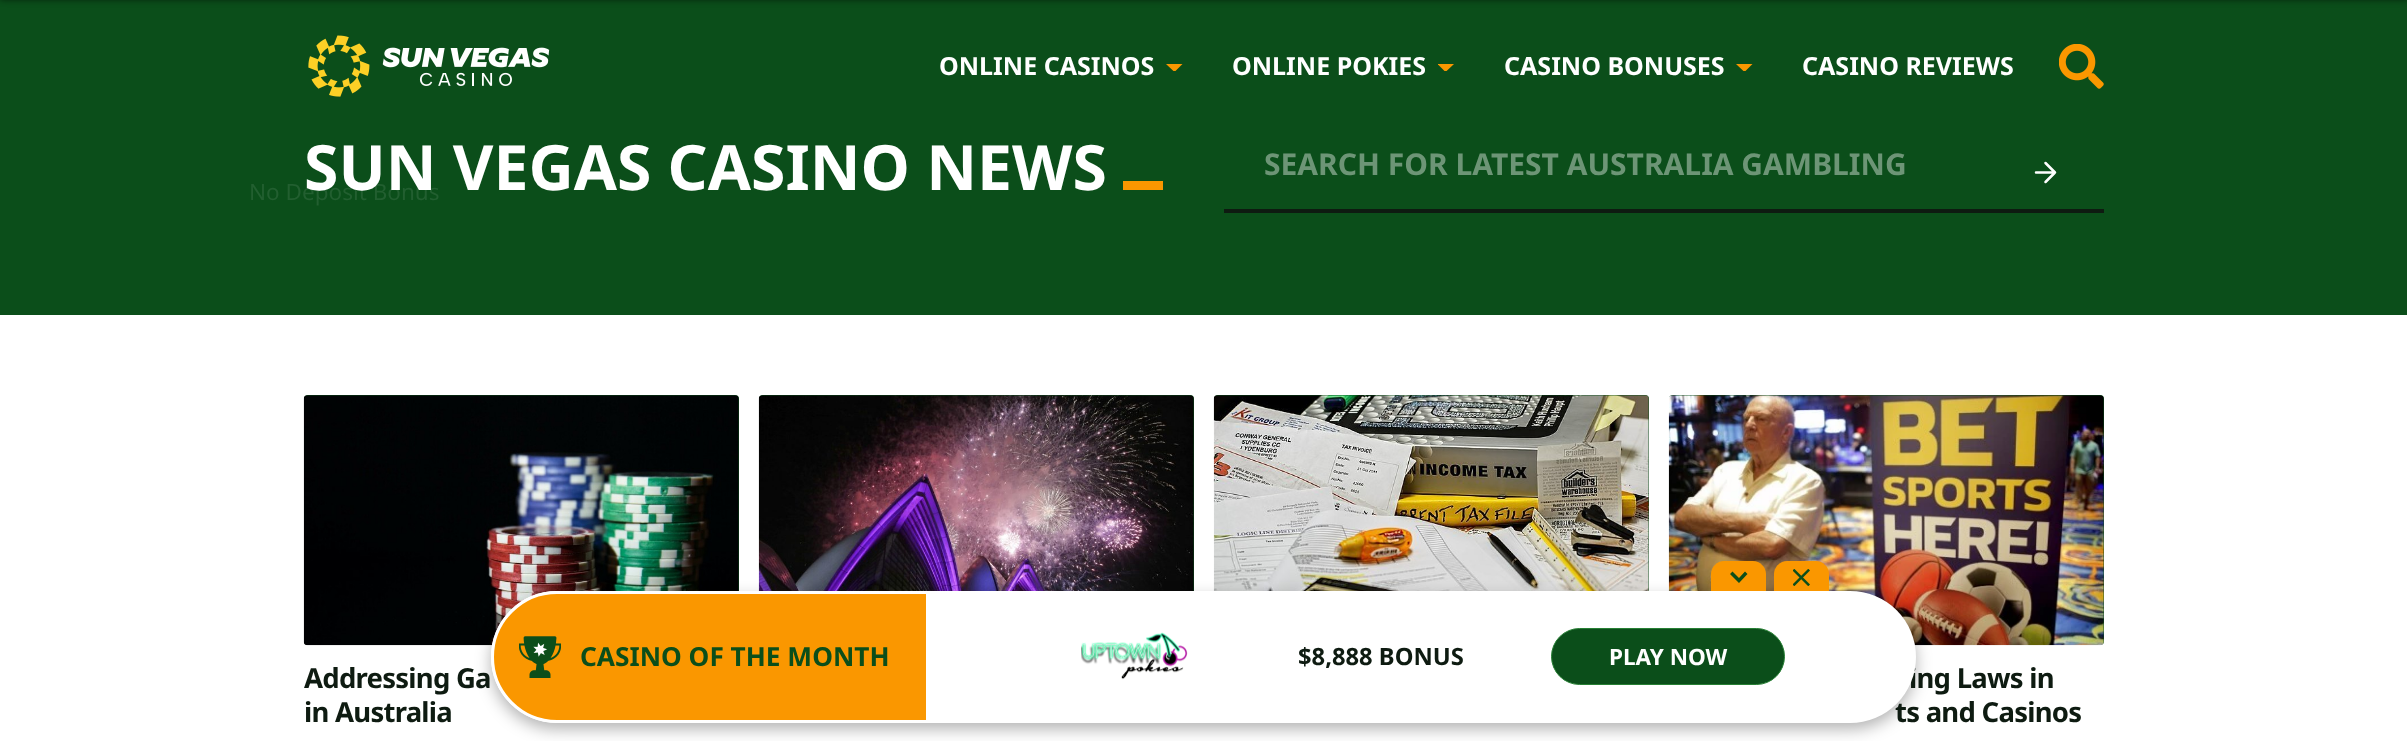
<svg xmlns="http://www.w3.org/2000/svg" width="2407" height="741">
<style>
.a{font:bold 25px Noto Sans;fill:#fff}
.b{font:22.5px Noto Sans;fill:#225f30}
.c{font:bold 62.5px Noto Sans;fill:#fff}
.d{font:bold 30px Noto Sans;fill:#6d9576}
.e{font:bold 27.5px Noto Sans;letter-spacing:-0.75px;fill:#0e1b11}
.f{font:bold 26.25px Noto Sans;fill:#0b4e1a}
.g{font:bold 23.75px Noto Sans;fill:#0e1b11}
.h{font:bold 22.5px Noto Sans;fill:#fff}
</style>
<defs>
<clipPath id="clip1"><path d="M1736 64h17v7H1736z"/></clipPath>
<clipPath id="clip2"><path d="M1166 64h17v7H1166z"/></clipPath>
<clipPath id="clip3"><path d="M1438 64h16v7H1438z"/></clipPath>
</defs>
<rect width="100%" height="100%" fill="#0b4e1a"/>
<image href="1.png" x="308" y="35" width="242" height="62"/>
<g clip-path="url(#clip1)">
<path fill="#fa9700" d="M1736 64l8.5 8l8-8z"/>
</g>
<g clip-path="url(#clip2)">
<path fill="#fa9700" d="M1166 64l8.5 8l8-8z"/>
</g>
<g clip-path="url(#clip3)">
<path fill="#fa9700" d="M1437.5 64l8 8l8.5-8z"/>
</g>
<image href="2.png" x="2059" y="44" width="45" height="45"/>
<path fill="#00000080" filter="blur(3px)" d="M0 -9h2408v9H0z"/>
<path fill="#fa9700" d="M1123 181h40v9H1123z"/>
<path fill="#0e1b11" d="M1224 209h880v4H1224z"/>
<path fill="none" stroke="#fff" stroke-width="2.5" stroke-linecap="round" stroke-linejoin="round" d="M2036 172.5h19m-9.5-9.5l9.5 9.5l-9.5 9.5"/>
<path fill="#fff" d="M0 315h2407v426H0z"/>
<rect fill="#0b4e1a" x="759" y="395" width="435" height="250" rx="4"/>
<image href="3.png" x="758" y="395" width="436" height="196"/>
<rect fill="#0b4e1a" x="1214" y="395" width="435" height="250" rx="4"/>
<image href="4.png" x="1213" y="395" width="436" height="196"/>
<rect fill="#0b4e1a" x="304" y="395" width="435" height="250" rx="4"/>
<image href="5.png" x="303" y="395" width="436" height="251"/>
<rect fill="#0b4e1a" x="1669" y="395" width="435" height="250" rx="4"/>
<image href="6.png" x="1668" y="395" width="436" height="251"/>
<rect fill="#0000004d" filter="blur(8px)" x="491" y="598" width="1425" height="131" rx="65.5"/>
<path fill="#fa9700" d="M1724 561h29c7 0 13 6 13 13v17h-55v-17c0-7 6-13 13-13z"/>
<path fill="#0b4e1a" fill-rule="evenodd" d="M1739 583l-9-9l2.5-2.5l6.5 6.5l6-6.5l2.5 2.5z"/>
<path fill="#fa9700" d="M1787 561h29c7 0 13 6 13 13v17h-55v-17c0-7 6-13 13-13z"/>
<image href="7.png" x="1793" y="569" width="17" height="17"/>
<text class="a" x="1504" y="75">CASINO BONUSES</text>
<text class="b" x="249" y="200">No Deposit Bonus</text>
<text class="a" x="939" y="75">ONLINE CASINOS</text>
<text class="a" x="1232" y="75">ONLINE POKIES</text>
<text class="a" x="1802" y="75">CASINO REVIEWS</text>
<text class="c" x="304" y="190">SUN VEGAS CASINO NEWS</text>
<text class="d" x="1264" y="175">SEARCH FOR LATEST AUSTRALIA GAMBLING</text>
<text class="e" x="304" y="688">Addressing Ga</text>
<text class="e" x="304" y="722">in Australia</text>
<text class="e" x="1909" y="688">ing Laws in</text>
<text class="e" x="1895" y="722">ts and Casinos</text>
<rect fill="#fff" x="491" y="591" width="1425" height="132" rx="66"/>
<path fill="#fa9700" stroke="#fff" stroke-width="3" d="M557 592.5h370.5v129h-370.5c-35.5 0-64.5-29-64.5-64.5c0-35.5 29-64.5 64.5-64.5z"/>
<image href="8.png" x="519" y="636" width="42" height="42"/>
<text class="f" x="580" y="666">CASINO OF THE MONTH</text>
<image href="9.png" x="1081" y="632" width="107" height="48"/>
<text class="g" x="1298" y="665">$8,888 BONUS</text>
<rect fill="#0b4e1a" stroke="#278034" x="1551.5" y="628.5" width="233" height="56" rx="28"/>
<text class="h" x="1609" y="665">PLAY NOW</text>
</svg>
